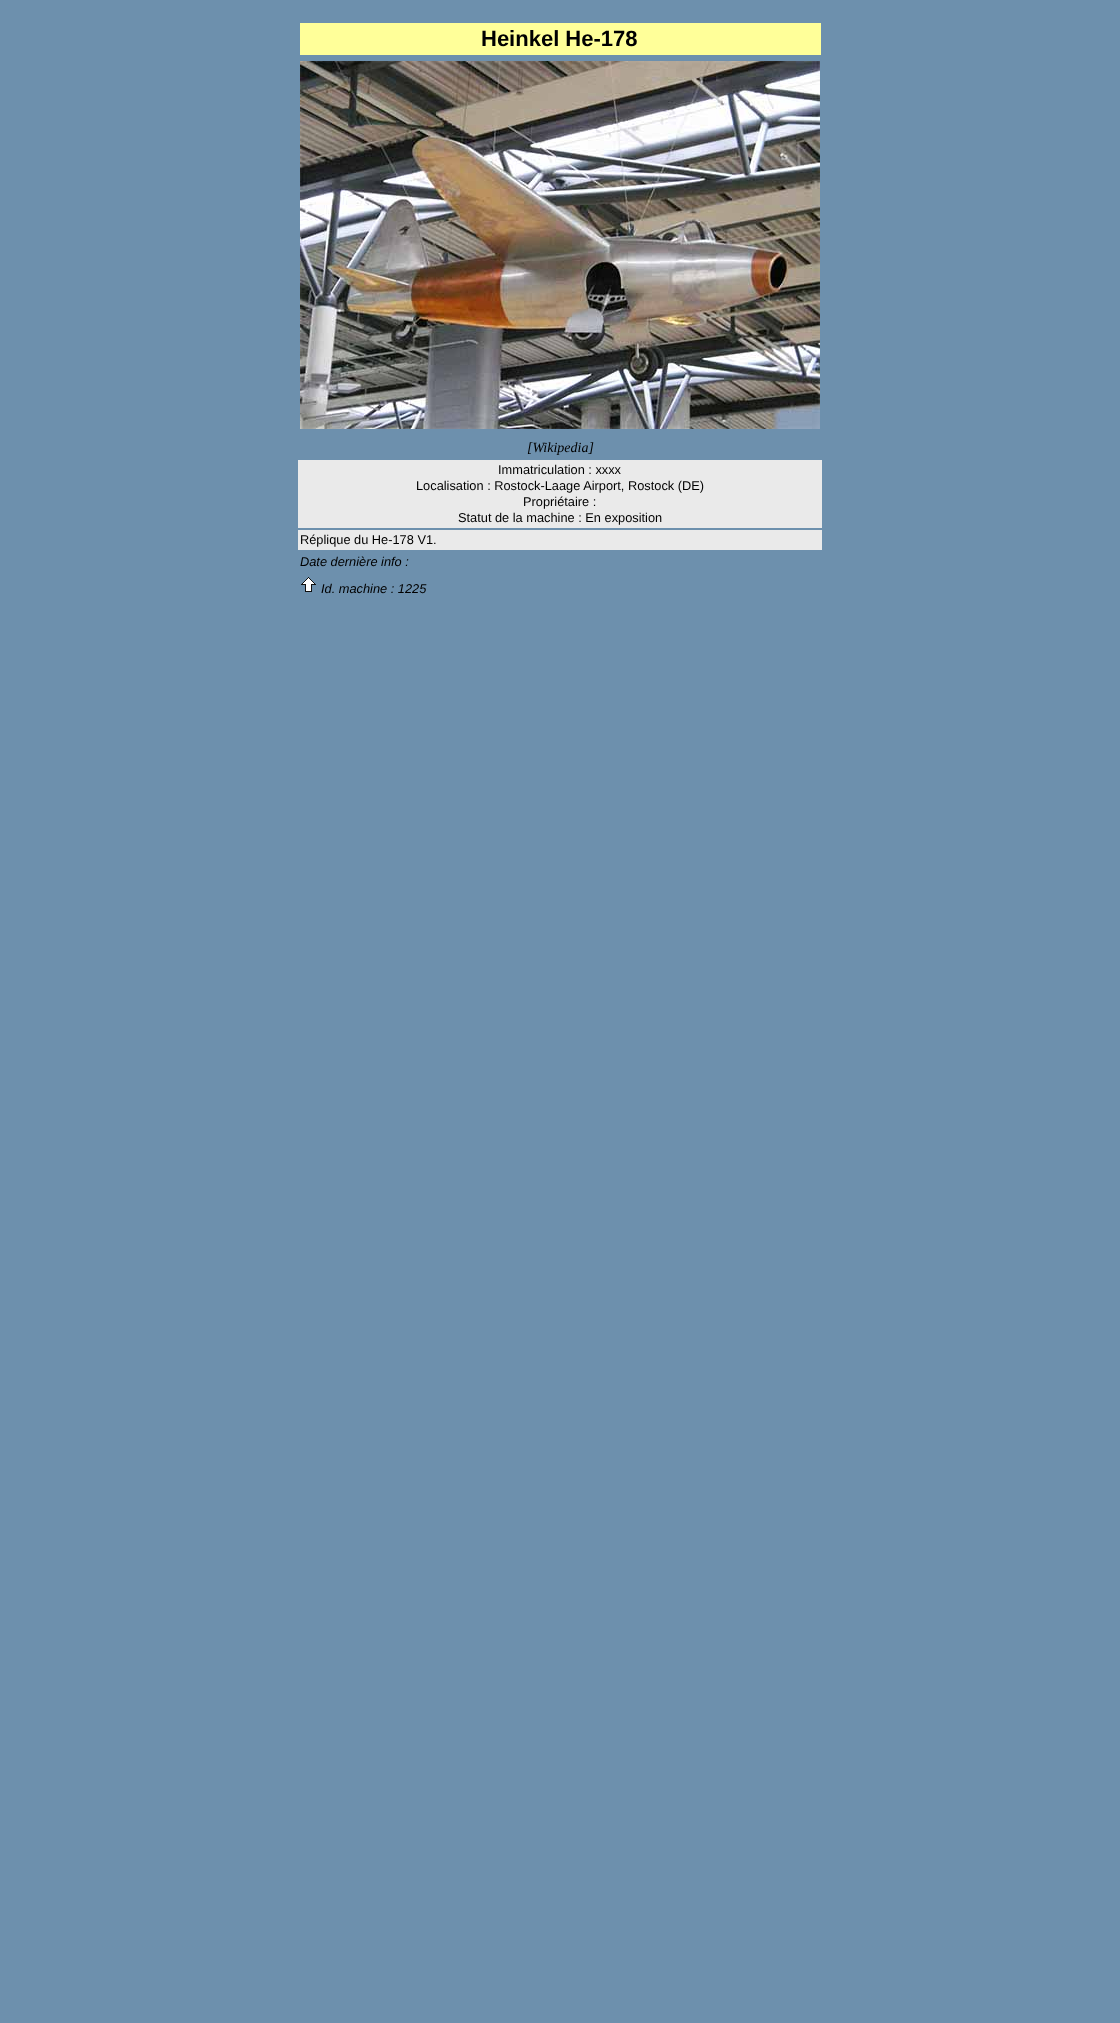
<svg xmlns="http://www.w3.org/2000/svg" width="1120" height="2023">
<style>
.a{font:bold 22px Liberation Sans;fill:#000}
.b{font:italic 14px Liberation Serif;fill:#000}
.c{font:12.8px Liberation Sans;fill:#000}
.d{font:italic 12.8px Liberation Sans;fill:#000}
</style>
<rect width="100%" height="100%" fill="#6d90ad"/>
<path fill="#ff9" d="M300 23h521v32H300z"/>
<image href="1.png" x="300" y="61" width="520" height="368"/>
<path fill="#eaeaea" d="M298 460h524v68H298z"/>
<path fill="#eaeaea" d="M298 530h524v20H298z"/>
<image href="2.png" x="301" y="577" width="15" height="15"/>
<text class="a" x="481" y="46">Heinkel He-178</text>
<text class="b" x="527" y="452">[Wikipedia]</text>
<text class="c" x="498" y="474">Immatriculation : xxxx</text>
<text class="c" x="416" y="490">Localisation : Rostock-Laage Airport, Rostock (DE)</text>
<text class="c" x="523" y="506">Propriétaire :</text>
<text class="c" x="458" y="522">Statut de la machine : En exposition</text>
<text class="c" x="300" y="544">Réplique du He-178 V1.</text>
<text class="d" x="300" y="566">Date dernière info :</text>
<text class="d" x="321" y="593">Id. machine : 1225</text>
</svg>
